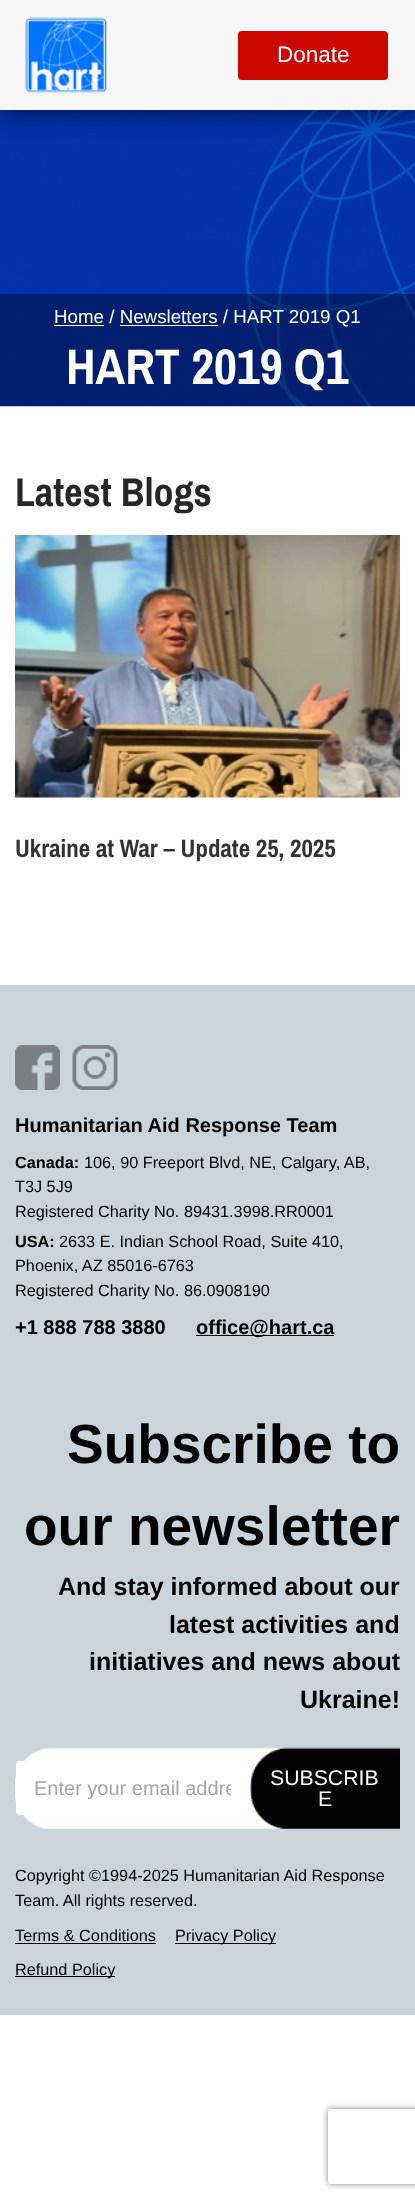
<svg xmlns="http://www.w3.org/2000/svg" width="415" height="2201">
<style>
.a{font:22.5px Arimo;fill:#fff}
.b{font:18.75px Arimo;fill:#fff}
.c{font:bold 50px Archivo Narrow;fill:#fff}
.d{font:bold 40px Archivo Narrow;fill:#272727}
.e{font:bold 25px Archivo Narrow;fill:#333}
.f{font:bold 20px Arimo;fill:#000}
.g{font:bold 16.25px Arimo;fill:#000}
.h{font:16.25px Arimo;fill:#000}
.i{font:bold 55px Arimo;fill:#000}
.j{font:bold 25px Arimo;fill:#000}
.k{font:20px Arimo;fill:#a6a6a6}
.l{font:21.25px Arimo;fill:#fff}
</style>
<defs>
<clipPath id="clip1"><path d="M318 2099h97v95h-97zm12.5 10h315c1.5 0 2.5 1 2.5 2.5v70c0 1.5-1 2.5-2.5 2.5h-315c-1.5 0-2.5-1-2.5-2.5v-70c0-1.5 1-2.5 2.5-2.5z" clip-rule="evenodd"/></clipPath>
<clipPath id="clip2"><path d="M34 1778h197v22H34z"/></clipPath>
</defs>
<rect width="100%" height="100%" fill="#fff"/>
<image href="2.png" x="0" y="110" width="415" height="297"/>
<path fill="#00000073" filter="blur(10.5px)" d="M0 5h415v110H0z"/>
<path fill="none" stroke="#0000000a" d="M-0.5 -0.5h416v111H-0.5z"/>
<path fill="#f7f7f7" d="M0 0h415v110H0z"/>
<image href="1.png" x="25" y="17" width="82" height="76"/>
<rect fill="#cb0700" x="238" y="31" width="150" height="49" rx="4"/>
<path fill="#00000059" d="M0 294h415v112H0z"/>
<path fill="#fff" d="M54 325h50v1H54z"/>
<path fill="#fff" d="M120 325h98v1H120z"/>
<image href="3.png" x="15" y="535" width="385" height="263"/>
<path fill="#cbd4db" d="M0 985h415v1030H0z"/>
<image href="4.png" x="15" y="1045" width="45" height="45"/>
<image href="5.png" x="72" y="1045" width="46" height="45"/>
<path fill="#000" d="M196 1335h138v1H196z"/>
<image href="6.png" x="15" y="1747" width="235" height="82"/>
<rect fill="#fff" x="16" y="1761" width="233" height="54" rx="4"/>
<image href="7.png" x="250" y="1747" width="150" height="82"/>
<path fill="#000" d="M15 1943h141v1H15z"/>
<path fill="#000" d="M175 1943h101v1H175z"/>
<path fill="#000" d="M15 1976h100v1H15z"/>
<g clip-path="url(#clip1)">
<rect fill="#808080" filter="blur(3px)" x="328" y="2109" width="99" height="75" rx="2.5"/>
</g>
<text class="a" x="277" y="62">Donate</text>
<text class="b" x="54" y="323">Home / Newsletters / HART 2019 Q1</text>
<text class="c" x="66" y="384">HART 2019 Q1</text>
<text class="d" x="15" y="506">Latest Blogs</text>
<text class="e" x="15" y="857">Ukraine at War – Update 25, 2025</text>
<text class="f" x="15" y="1132">Humanitarian Aid Response Team</text>
<text class="g" x="15" y="1168">Canada:</text>
<text class="h" x="84" y="1168">106, 90 Freeport Blvd, NE, Calgary, AB,</text>
<text class="h" x="15" y="1192">T3J 5J9</text>
<text class="h" x="15" y="1217">Registered Charity No. 89431.3998.RR0001</text>
<text class="g" x="15" y="1247">USA:</text>
<text class="h" x="59" y="1247">2633 E. Indian School Road, Suite 410,</text>
<text class="h" x="15" y="1271">Phoenix, AZ 85016-6763</text>
<text class="h" x="15" y="1296">Registered Charity No. 86.0908190</text>
<text class="f" x="15" y="1334">+1 888 788 3880</text>
<text class="f" x="196" y="1334">office@hart.ca</text>
<text class="i" x="67" y="1463">Subscribe to</text>
<text class="i" x="24" y="1545">our newsletter</text>
<text class="j" x="58" y="1595">And stay informed about our</text>
<text class="j" x="169" y="1633">latest activities and</text>
<text class="j" x="89" y="1670">initiatives and news about</text>
<text class="j" x="300" y="1708">Ukraine!</text>
<g clip-path="url(#clip2)">
<text class="k" x="34" y="1795">Enter your email addre</text>
</g>
<text class="l" x="270" y="1785">SUBSCRIB</text>
<text class="l" x="318" y="1806">E</text>
<text class="h" x="15" y="1881">Copyright ©1994-2025 Humanitarian Aid Response</text>
<text class="h" x="15" y="1906">Team. All rights reserved.</text>
<text class="h" x="15" y="1941">Terms &amp; Conditions</text>
<text class="h" x="175" y="1941">Privacy Policy</text>
<text class="h" x="15" y="1975">Refund Policy</text>
</svg>
